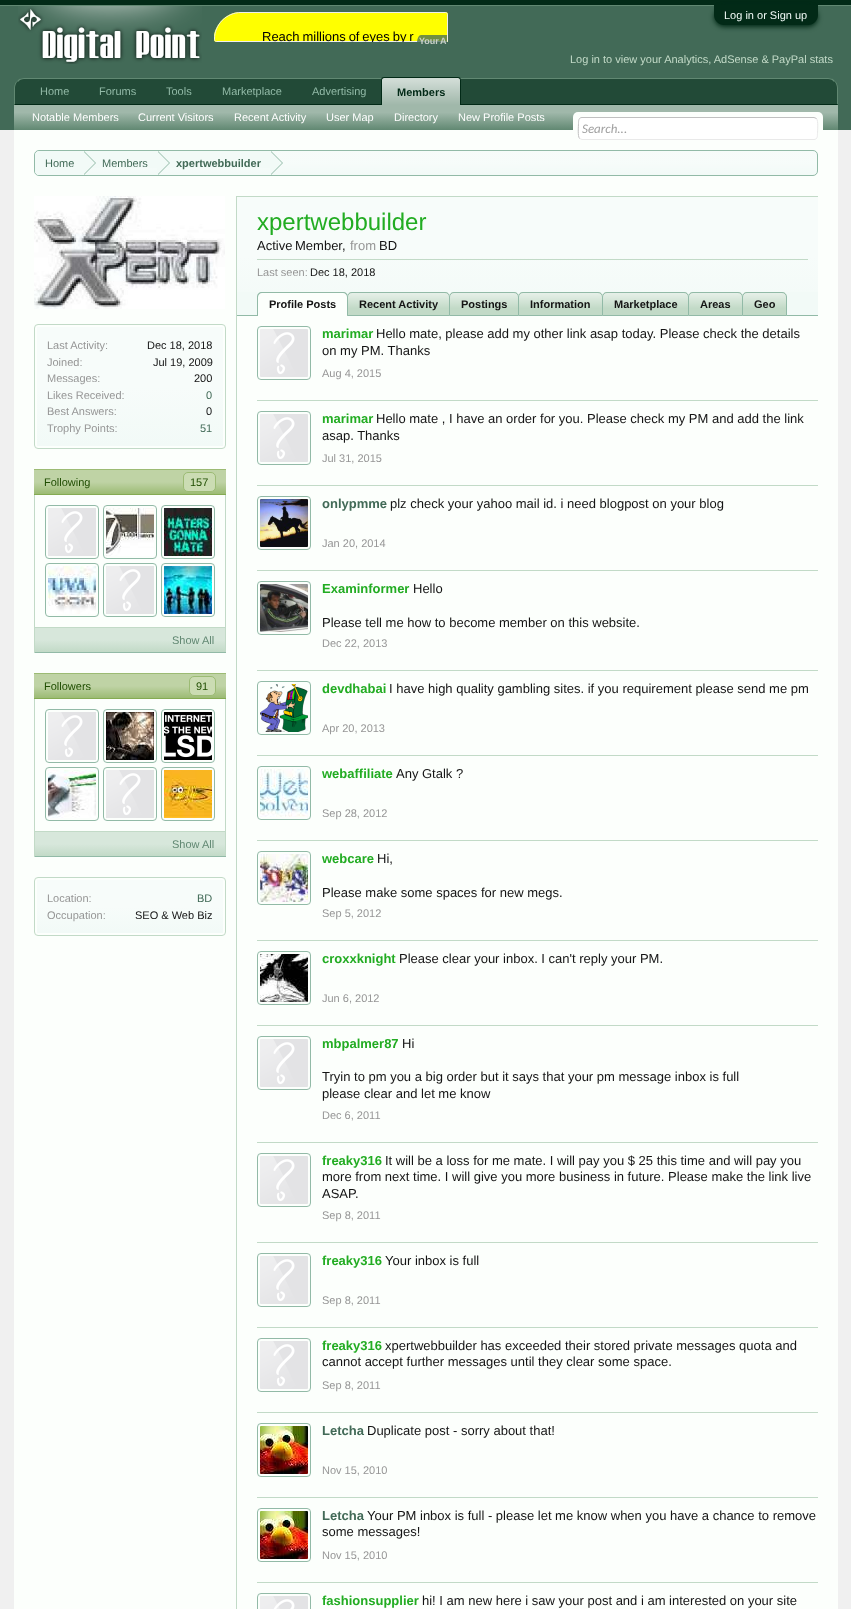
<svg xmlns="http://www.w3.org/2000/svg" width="851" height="1609">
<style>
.a{font:11px Liberation Sans;fill:#f2faf7}
.b{font:13px Liberation Sans;fill:#000}
.c{font:bold 9px Liberation Sans;fill:#c8d0c8}
.d{font:11px Liberation Sans;fill:#c2dac7}
.e{font:11px Liberation Sans;fill:#92baa7}
.f{font:bold 11px Liberation Sans;fill:#022a17}
.g{font:11px Liberation Sans;fill:#fff}
.h{font:italic 13px Carlito;fill:#a0a0a0}
.i{font:11px Liberation Sans;fill:#426a57}
.j{font:bold 11px Liberation Sans;fill:#426a57}
.k{font:11px Liberation Sans;fill:#969696}
.l{font:11px Liberation Sans;fill:#141414}
.m{font:11px Liberation Sans;fill:#1f4d00}
.n{font:11px Liberation Sans;fill:#618872}
.o{font:24px Liberation Sans;fill:#22ac22}
.p{font:13px Liberation Sans;fill:#141414}
.q{font:13px Liberation Sans;fill:#969696}
.r{font:bold 11px Liberation Sans;fill:#141414}
.s{font:bold 13px Liberation Sans;fill:#22ac22}
.t{font:bold 13px Liberation Sans;fill:#426a57}
</style>
<defs>
<clipPath id="clip1"><path d="M214 12h234v60H214z"/></clipPath>
<clipPath id="clip2"><path d="M384 77h74c1.5 0 3 1.5 3 3v25h-80v-25c0-1.5 1.5-3 3-3z"/></clipPath>
<linearGradient id="g1" gradientUnits="userSpaceOnUse" x1="421" y1="78" x2="421" y2="105"><stop offset="0" stop-color="#fff" stop-opacity="0.7"/><stop offset="0.1" stop-color="#fff" stop-opacity="0.7"/><stop offset="1" stop-color="#fff" stop-opacity="0.4"/></linearGradient>
<linearGradient id="g2" gradientUnits="userSpaceOnUse" x1="426" y1="105" x2="426" y2="130"><stop offset="0" stop-color="#a0b8aa"/><stop offset="0.3" stop-color="#a0b8aa"/><stop offset="1" stop-color="#618872"/></linearGradient>
<clipPath id="clip3"><rect x="34" y="150" width="784" height="26" rx="5"/></clipPath>
<linearGradient id="g3" gradientUnits="userSpaceOnUse" x1="426" y1="151" x2="426" y2="175"><stop offset="0" stop-color="#fff" stop-opacity="0.35"/><stop offset="0.5" stop-color="#fff" stop-opacity="0.35"/><stop offset="1" stop-color="#fff" stop-opacity="0"/></linearGradient>
<clipPath id="clip4"><rect x="35" y="151" width="782" height="24" rx="4"/></clipPath>
<linearGradient id="g4" gradientUnits="userSpaceOnUse" x1="130" y1="327" x2="130" y2="446"><stop offset="0" stop-color="#f7fcfa"/><stop offset="0.5" stop-color="#f7fcfa"/><stop offset="1" stop-color="#f2faf7"/></linearGradient>
<linearGradient id="g5" gradientUnits="userSpaceOnUse" x1="130" y1="470" x2="130" y2="494"><stop offset="0" stop-color="#bfd3a5"/><stop offset="0.5" stop-color="#bfd3a5"/><stop offset="1" stop-color="#9cbb74"/></linearGradient>
<linearGradient id="g6" gradientUnits="userSpaceOnUse" x1="130" y1="628" x2="130" y2="652"><stop offset="0" stop-color="#d7e7db"/><stop offset="0.5" stop-color="#d7e7db"/><stop offset="1" stop-color="#c2dac7"/></linearGradient>
<linearGradient id="g7" gradientUnits="userSpaceOnUse" x1="130" y1="674" x2="130" y2="698"><stop offset="0" stop-color="#bfd3a5"/><stop offset="0.5" stop-color="#bfd3a5"/><stop offset="1" stop-color="#9cbb74"/></linearGradient>
<linearGradient id="g8" gradientUnits="userSpaceOnUse" x1="130" y1="832" x2="130" y2="856"><stop offset="0" stop-color="#d7e7db"/><stop offset="0.5" stop-color="#d7e7db"/><stop offset="1" stop-color="#c2dac7"/></linearGradient>
<linearGradient id="g9" gradientUnits="userSpaceOnUse" x1="130" y1="880" x2="130" y2="933"><stop offset="0" stop-color="#f7fcfa"/><stop offset="0.5" stop-color="#f7fcfa"/><stop offset="1" stop-color="#f2faf7"/></linearGradient>
<linearGradient id="g10" gradientUnits="userSpaceOnUse" x1="528" y1="197" x2="528" y2="315"><stop offset="0" stop-color="#f7fcfa"/><stop offset="0.5" stop-color="#f7fcfa"/><stop offset="1" stop-color="#f2faf7"/></linearGradient>
<clipPath id="clip5"><path d="M352 292h93c3 0 5 2 5 5v19h-103v-19c0-3 2-5 5-5z"/></clipPath>
<linearGradient id="g11" gradientUnits="userSpaceOnUse" x1="399" y1="293" x2="399" y2="315"><stop offset="0" stop-color="#fff" stop-opacity="0.6"/><stop offset="0.7" stop-color="#fff" stop-opacity="0"/></linearGradient>
<clipPath id="clip6"><path d="M454 292h60c3 0 5 2 5 5v19h-70v-19c0-3 2-5 5-5z"/></clipPath>
<linearGradient id="g12" gradientUnits="userSpaceOnUse" x1="484" y1="293" x2="484" y2="315"><stop offset="0" stop-color="#fff" stop-opacity="0.6"/><stop offset="0.7" stop-color="#fff" stop-opacity="0"/></linearGradient>
<clipPath id="clip7"><path d="M523 292h75c3 0 5 2 5 5v19h-85v-19c0-3 2-5 5-5z"/></clipPath>
<linearGradient id="g13" gradientUnits="userSpaceOnUse" x1="561" y1="293" x2="561" y2="315"><stop offset="0" stop-color="#fff" stop-opacity="0.6"/><stop offset="0.7" stop-color="#fff" stop-opacity="0"/></linearGradient>
<clipPath id="clip8"><path d="M607 292h77c3 0 5 2 5 5v19h-87v-19c0-3 2-5 5-5z"/></clipPath>
<linearGradient id="g14" gradientUnits="userSpaceOnUse" x1="646" y1="293" x2="646" y2="315"><stop offset="0" stop-color="#fff" stop-opacity="0.6"/><stop offset="0.7" stop-color="#fff" stop-opacity="0"/></linearGradient>
<clipPath id="clip9"><path d="M693 292h45c3 0 5 2 5 5v19h-55v-19c0-3 2-5 5-5z"/></clipPath>
<linearGradient id="g15" gradientUnits="userSpaceOnUse" x1="716" y1="293" x2="716" y2="315"><stop offset="0" stop-color="#fff" stop-opacity="0.6"/><stop offset="0.7" stop-color="#fff" stop-opacity="0"/></linearGradient>
<clipPath id="clip10"><path d="M747 292h35c3 0 5 2 5 5v19h-45v-19c0-3 2-5 5-5z"/></clipPath>
<linearGradient id="g16" gradientUnits="userSpaceOnUse" x1="765" y1="293" x2="765" y2="315"><stop offset="0" stop-color="#fff" stop-opacity="0.6"/><stop offset="0.7" stop-color="#fff" stop-opacity="0"/></linearGradient>
<clipPath id="clip11"><path d="M241 12h204.5c1.5 0 2.5 1 2.5 2.5v27.5h-231.5c-1.5 0-2.5-1-2.5-2.5v-.5c0-15 12-27 27-27z"/></clipPath>
</defs>
<rect width="100%" height="100%" fill="#f0f0f0"/>
<path fill="#022a17" d="M0 0h851v5H0z"/>
<path fill="#618872" d="M0 5h851v1H0z"/>
<path fill="#426a57" d="M0 6h851v124H0z"/>
<rect fill="#022a17" filter="blur(2.5px)" x="714" y="7" width="104" height="20" rx="10"/>
<path fill="#022a17" d="M714 5h104v10c0 5.5-4.5 10-10 10h-84c-5.5 0-10-4.5-10-10z"/>
<image href="1.png" x="18" y="6" width="184" height="58"/>
<g clip-path="url(#clip1)">
<path fill="#ff0" d="M241 12c-24 0-32 30-25 30h232v-28c0-1-1-2-2-2z"/>
</g>
<path fill="none" stroke="#eee" d="M241 12.5h204.5c1 0 2 1 2 2v27h-231c-1 0-2-1-2-2v-.5c0-14.5 12-26.5 26.5-26.5z"/>
<path fill="#426a57bf" d="M421 35h26v8h-30c0-4.5 2-8 4-8z"/>
<path fill="#224a37" d="M24 78h804c5.5 0 10 4.5 10 10v17h-824v-17c0-5.5 4.5-10 10-10z"/>
<path fill="#618872" d="M24 78c-3 0-6 1-7 3l1 1c1-2 4-3 6-3h804c2 0 5 1 6 3l1-1c-1-2-4-3-7-3z"/>
<path fill="#618872" d="M838 105v-17c0-3-1-5.5-3-7l-.5 .5c1.5 1.5 2.5 4 2.5 6.5v16z"/>
<path fill="#022a17" d="M838 105l-1-1h-822l-1 1z"/>
<path fill="#618872" d="M14 105l1-1v-16c0-2.5 1-5 2.5-6.5l-.5-.5c-2 1.5-3 4-3 7z"/>
<path fill="#618872" d="M384 77h74c1.5 0 3 1.5 3 3v25h-80v-25c0-1.5 1.5-3 3-3z"/>
<g clip-path="url(#clip2)">
<path fill="url(#g1)" d="M381 78h80v27H381z"/>
</g>
<path fill="#022a17" fill-rule="evenodd" d="M384 77h74c2 0 3 1 3 3v25h-80v-25c0-2 1-3 3-3zm0 1h74c1 0 2 1 2 2v25h-78v-25c0-1 1-2 2-2z"/>
<path fill="url(#g2)" d="M14 105h824v25H14z"/>
<path fill="#fcfffc" d="M14 130h824v1479H14z"/>
<rect fill="#fcfffc" x="573" y="112" width="250" height="28" rx="5"/>
<rect fill="#fff" x="578" y="117" width="240" height="23" rx="4"/>
<path fill="none" stroke="#e9e9e9" d="M816.5 118.5c2 2.5 1 12 1 15c0 2.5 0 6-3.5 6h-232l-2.5-1"/>
<path fill="none" stroke="#c0c0c0" d="M579.5 138.5c-2-2.5-1-12-1-15c0-2.5 0-6 3.5-6h232l2.5 1"/>
<rect fill="#f2faf7" x="34" y="150" width="784" height="26" rx="5"/>
<g clip-path="url(#clip3)">
<path fill="url(#g3)" d="M34 151h784v23H34z"/>
</g>
<rect fill="none" stroke="#92baa7" x="34.5" y="150.5" width="783" height="25" rx="4.5"/>
<g clip-path="url(#clip4)">
<path fill="#f2faf7" d="M40 151h44v25h-44c-3 0-5-2-5-5v-15c0-3 2-5 5-5z"/>
</g>
<path fill="#f2faf7" d="M84 151h187v17H84z"/>
<path fill="#92baa7" d="M84 175v-24l12 12z"/>
<path fill="#f2faf7" d="M83 175v-24l12 12z"/>
<path fill="#92baa7" d="M158 175v-24l12 12z"/>
<path fill="#f2faf7" d="M157 175v-24l12 12z"/>
<path fill="#92baa7" d="M271 175v-24l12 12z"/>
<path fill="#f2faf7" d="M270 175v-24l12 12z"/>
<image href="2.png" x="34" y="196" width="191" height="113"/>
<rect fill="none" stroke="#c2dac7" x="34.5" y="324.5" width="191" height="124" rx="3.5"/>
<path fill="url(#g4)" d="M37 327h186v119H37z"/>
<path fill="url(#g5)" d="M34 470h192v24H34z"/>
<path fill="#9cbb74" d="M34 469h192v1H34z"/>
<path fill="#85ab52" d="M34 494h192v1H34z"/>
<rect fill="#cbdcb3" stroke="#9cbb74" x="183.5" y="472.5" width="32" height="19" rx="4.5"/>
<path fill="#c2dac7" d="M225 495h1v158H225z"/>
<path fill="#c2dac7" d="M34 627h192v1H34z"/>
<path fill="#c2dac7" d="M34 495h1v133H34z"/>
<image href="3.png" x="48" y="508" width="48" height="48"/>
<rect fill="none" stroke="#92baa7" x="45.5" y="505.5" width="53" height="53" rx="3.5"/>
<image href="4.png" x="106" y="508" width="48" height="48"/>
<rect fill="none" stroke="#92baa7" x="103.5" y="505.5" width="53" height="53" rx="3.5"/>
<image href="5.png" x="164" y="508" width="48" height="48"/>
<rect fill="none" stroke="#92baa7" x="161.5" y="505.5" width="53" height="53" rx="3.5"/>
<image href="6.png" x="48" y="566" width="48" height="48"/>
<rect fill="none" stroke="#92baa7" x="45.5" y="563.5" width="53" height="53" rx="3.5"/>
<image href="3.png" x="106" y="566" width="48" height="48"/>
<rect fill="none" stroke="#92baa7" x="103.5" y="563.5" width="53" height="53" rx="3.5"/>
<image href="7.png" x="164" y="566" width="48" height="48"/>
<rect fill="none" stroke="#92baa7" x="161.5" y="563.5" width="53" height="53" rx="3.5"/>
<path fill="url(#g6)" d="M35 628h190v24H35z"/>
<path fill="#92baa7" d="M34 652h192v1H34z"/>
<path fill="#c2dac7" d="M34 628h1v25H34z"/>
<path fill="url(#g7)" d="M34 674h192v24H34z"/>
<path fill="#9cbb74" d="M34 673h192v1H34z"/>
<path fill="#85ab52" d="M34 698h192v1H34z"/>
<rect fill="#cbdcb3" stroke="#9cbb74" x="189.5" y="676.5" width="26" height="19" rx="4.5"/>
<path fill="#c2dac7" d="M225 699h1v158H225z"/>
<path fill="#c2dac7" d="M34 831h192v1H34z"/>
<path fill="#c2dac7" d="M34 699h1v133H34z"/>
<image href="3.png" x="48" y="712" width="48" height="48"/>
<rect fill="none" stroke="#92baa7" x="45.5" y="709.5" width="53" height="53" rx="3.5"/>
<image href="8.png" x="106" y="712" width="48" height="48"/>
<rect fill="none" stroke="#92baa7" x="103.5" y="709.5" width="53" height="53" rx="3.5"/>
<image href="9.png" x="164" y="712" width="48" height="48"/>
<rect fill="none" stroke="#92baa7" x="161.5" y="709.5" width="53" height="53" rx="3.5"/>
<image href="10.png" x="48" y="770" width="48" height="48"/>
<rect fill="none" stroke="#92baa7" x="45.5" y="767.5" width="53" height="53" rx="3.5"/>
<image href="3.png" x="106" y="770" width="48" height="48"/>
<rect fill="none" stroke="#92baa7" x="103.5" y="767.5" width="53" height="53" rx="3.5"/>
<image href="11.png" x="164" y="770" width="48" height="48"/>
<rect fill="none" stroke="#92baa7" x="161.5" y="767.5" width="53" height="53" rx="3.5"/>
<path fill="url(#g8)" d="M35 832h190v24H35z"/>
<path fill="#92baa7" d="M34 856h192v1H34z"/>
<path fill="#c2dac7" d="M34 832h1v25H34z"/>
<rect fill="none" stroke="#c2dac7" x="34.5" y="877.5" width="191" height="58" rx="3.5"/>
<path fill="url(#g9)" d="M37 880h186v53H37z"/>
<path fill="#c2dac7" d="M236 196h1v1413H236z"/>
<path fill="#c2dac7" d="M237 196h581v1H237z"/>
<path fill="url(#g10)" d="M237 197h581v95H237z"/>
<path fill="#c2dac7" d="M257 259h551v1H257z"/>
<path fill="#f2faf7" d="M237 292h581v23H237z"/>
<path fill="#92baa7" d="M237 315h581v1H237z"/>
<path fill="#fcfffc" d="M262 292h81c3 0 5 2 5 5v19h-91v-19c0-3 2-5 5-5z"/>
<path fill="#92baa7" fill-rule="evenodd" d="M262 292h81c3 0 5 2 5 5v19h-91v-19c0-3 2-5 5-5zm0 1h81c2 0 4 2 4 4v19h-89v-19c0-2 2-4 4-4z"/>
<path fill="#c2dac7" d="M352 292h93c3 0 5 2 5 5v19h-103v-19c0-3 2-5 5-5z"/>
<g clip-path="url(#clip5)">
<path fill="url(#g11)" d="M347 293h103v15H347z"/>
</g>
<path fill="none" stroke="#92baa7" d="M352 292.5h93c2.5 0 4.5 2 4.5 4.5v18.5h-102v-18.5c0-2.5 2-4.5 4.5-4.5z"/>
<path fill="#c2dac7" d="M454 292h60c3 0 5 2 5 5v19h-70v-19c0-3 2-5 5-5z"/>
<g clip-path="url(#clip6)">
<path fill="url(#g12)" d="M449 293h70v15H449z"/>
</g>
<path fill="none" stroke="#92baa7" d="M454 292.5h60c2.5 0 4.5 2 4.5 4.5v18.5h-69v-18.5c0-2.5 2-4.5 4.5-4.5z"/>
<path fill="#c2dac7" d="M523 292h75c3 0 5 2 5 5v19h-85v-19c0-3 2-5 5-5z"/>
<g clip-path="url(#clip7)">
<path fill="url(#g13)" d="M518 293h85v15H518z"/>
</g>
<path fill="none" stroke="#92baa7" d="M523 292.5h75c2.5 0 4.5 2 4.5 4.5v18.5h-84v-18.5c0-2.5 2-4.5 4.5-4.5z"/>
<path fill="#c2dac7" d="M607 292h77c3 0 5 2 5 5v19h-87v-19c0-3 2-5 5-5z"/>
<g clip-path="url(#clip8)">
<path fill="url(#g14)" d="M602 293h87v15H602z"/>
</g>
<path fill="none" stroke="#92baa7" d="M607 292.5h77c2.5 0 4.5 2 4.5 4.5v18.5h-86v-18.5c0-2.5 2-4.5 4.5-4.5z"/>
<path fill="#c2dac7" d="M693 292h45c3 0 5 2 5 5v19h-55v-19c0-3 2-5 5-5z"/>
<g clip-path="url(#clip9)">
<path fill="url(#g15)" d="M688 293h55v15H688z"/>
</g>
<path fill="none" stroke="#92baa7" d="M693 292.5h45c2.5 0 4.5 2 4.5 4.5v18.5h-54v-18.5c0-2.5 2-4.5 4.5-4.5z"/>
<path fill="#c2dac7" d="M747 292h35c3 0 5 2 5 5v19h-45v-19c0-3 2-5 5-5z"/>
<g clip-path="url(#clip10)">
<path fill="url(#g16)" d="M742 293h45v15H742z"/>
</g>
<path fill="none" stroke="#92baa7" d="M747 292.5h35c2.5 0 4.5 2 4.5 4.5v18.5h-44v-18.5c0-2.5 2-4.5 4.5-4.5z"/>
<path fill="#c2dac7" d="M257 400h561v1H257z"/>
<rect fill="none" stroke="#92baa7" x="257.5" y="326.5" width="53" height="53" rx="3.5"/>
<image href="12.png" x="260" y="329" width="48" height="48"/>
<path fill="#c2dac7" d="M257 485h561v1H257z"/>
<rect fill="none" stroke="#92baa7" x="257.5" y="411.5" width="53" height="53" rx="3.5"/>
<image href="12.png" x="260" y="414" width="48" height="48"/>
<path fill="#c2dac7" d="M257 570h561v1H257z"/>
<rect fill="none" stroke="#92baa7" x="257.5" y="496.5" width="53" height="53" rx="3.5"/>
<image href="13.png" x="260" y="499" width="48" height="48"/>
<path fill="#c2dac7" d="M257 670h561v1H257z"/>
<rect fill="none" stroke="#92baa7" x="257.5" y="581.5" width="53" height="53" rx="3.5"/>
<image href="14.png" x="260" y="584" width="48" height="48"/>
<path fill="#c2dac7" d="M257 755h561v1H257z"/>
<rect fill="none" stroke="#92baa7" x="257.5" y="681.5" width="53" height="53" rx="3.5"/>
<image href="15.png" x="260" y="684" width="48" height="48"/>
<path fill="#c2dac7" d="M257 840h561v1H257z"/>
<rect fill="none" stroke="#92baa7" x="257.5" y="766.5" width="53" height="53" rx="3.5"/>
<image href="16.png" x="260" y="769" width="48" height="48"/>
<path fill="#c2dac7" d="M257 940h561v1H257z"/>
<rect fill="none" stroke="#92baa7" x="257.5" y="851.5" width="53" height="53" rx="3.5"/>
<image href="17.png" x="260" y="854" width="48" height="48"/>
<path fill="#c2dac7" d="M257 1025h561v1H257z"/>
<rect fill="none" stroke="#92baa7" x="257.5" y="951.5" width="53" height="53" rx="3.5"/>
<image href="18.png" x="260" y="954" width="48" height="48"/>
<path fill="#c2dac7" d="M257 1142h561v1H257z"/>
<rect fill="none" stroke="#92baa7" x="257.5" y="1036.5" width="53" height="53" rx="3.5"/>
<image href="12.png" x="260" y="1039" width="48" height="48"/>
<path fill="#c2dac7" d="M257 1242h561v1H257z"/>
<rect fill="none" stroke="#92baa7" x="257.5" y="1153.5" width="53" height="53" rx="3.5"/>
<image href="12.png" x="260" y="1156" width="48" height="48"/>
<path fill="#c2dac7" d="M257 1327h561v1H257z"/>
<rect fill="none" stroke="#92baa7" x="257.5" y="1253.5" width="53" height="53" rx="3.5"/>
<image href="12.png" x="260" y="1256" width="48" height="48"/>
<path fill="#c2dac7" d="M257 1412h561v1H257z"/>
<rect fill="none" stroke="#92baa7" x="257.5" y="1338.5" width="53" height="53" rx="3.5"/>
<image href="12.png" x="260" y="1341" width="48" height="48"/>
<path fill="#c2dac7" d="M257 1497h561v1H257z"/>
<rect fill="none" stroke="#92baa7" x="257.5" y="1423.5" width="53" height="53" rx="3.5"/>
<image href="19.png" x="260" y="1426" width="48" height="48"/>
<path fill="#c2dac7" d="M257 1582h561v1H257z"/>
<rect fill="none" stroke="#92baa7" x="257.5" y="1508.5" width="53" height="53" rx="3.5"/>
<image href="19.png" x="260" y="1511" width="48" height="48"/>
<rect fill="none" stroke="#92baa7" x="257.5" y="1593.5" width="53" height="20" rx="3.5"/>
<image href="20.png" x="260" y="1596" width="48" height="13"/>
<text class="a" x="724" y="19">Log in or Sign up</text>
<g clip-path="url(#clip11)">
<text class="b" x="262" y="41" word-spacing="-0.75">Reach millions of eyes by r</text>
</g>
<text class="c" x="419" y="44" word-spacing="-1">Your A</text>
<text class="d" x="570" y="63">Log in to view your Analytics, AdSense &amp; PayPal stats</text>
<text class="e" x="40" y="95">Home</text>
<text class="e" x="99" y="95">Forums</text>
<text class="e" x="166" y="95">Tools</text>
<text class="e" x="222" y="95">Marketplace</text>
<text class="e" x="312" y="95">Advertising</text>
<text class="f" x="397" y="96">Members</text>
<text class="g" x="32" y="121">Notable Members</text>
<text class="g" x="138" y="121">Current Visitors</text>
<text class="g" x="234" y="121">Recent Activity</text>
<text class="g" x="326" y="121">User Map</text>
<text class="g" x="394" y="121">Directory</text>
<text class="g" x="458" y="121">New Profile Posts</text>
<text class="h" x="582" y="133">Search...</text>
<text class="i" x="45" y="167">Home</text>
<text class="i" x="102" y="167">Members</text>
<text class="j" x="176" y="167">xpertwebbuilder</text>
<text class="k" x="47" y="349">Last Activity:</text>
<text class="l" x="147" y="349">Dec 18, 2018</text>
<text class="k" x="47" y="366">Joined:</text>
<text class="l" x="153" y="366">Jul 19, 2009</text>
<text class="k" x="47" y="382">Messages:</text>
<text class="l" x="194" y="382">200</text>
<text class="k" x="47" y="399">Likes Received:</text>
<text class="i" x="206" y="399">0</text>
<text class="k" x="47" y="415">Best Answers:</text>
<text class="l" x="206" y="415">0</text>
<text class="k" x="47" y="432">Trophy Points:</text>
<text class="i" x="200" y="432">51</text>
<text class="m" x="44" y="486">Following</text>
<text class="m" x="190" y="486">157</text>
<text class="n" x="172" y="644">Show All</text>
<text class="m" x="44" y="690">Followers</text>
<text class="m" x="196" y="690">91</text>
<text class="n" x="172" y="848">Show All</text>
<text class="k" x="47" y="902">Location:</text>
<text class="i" x="197" y="902">BD</text>
<text class="k" x="47" y="919">Occupation:</text>
<text class="l" x="135" y="919">SEO &amp; Web Biz</text>
<text class="o" x="257" y="230">xpertwebbuilder</text>
<text class="p" x="257" y="250" word-spacing="-1">Active Member</text>
<text class="p" x="342" y="250">,</text>
<text class="q" x="350" y="250">from</text>
<text class="p" x="379" y="250">BD</text>
<text class="k" x="257" y="276">Last seen:</text>
<text class="l" x="310" y="276">Dec 18, 2018</text>
<text class="r" x="269" y="308">Profile Posts</text>
<text class="r" x="359" y="308">Recent Activity</text>
<text class="r" x="461" y="308">Postings</text>
<text class="r" x="530" y="308">Information</text>
<text class="r" x="614" y="308">Marketplace</text>
<text class="r" x="700" y="308">Areas</text>
<text class="r" x="754" y="308">Geo</text>
<text class="s" x="322" y="338">marimar</text>
<text class="p" x="376" y="338">Hello mate, please add my other link asap today. Please check the details</text>
<text class="p" x="322" y="355">on my PM. Thanks</text>
<text class="k" x="322" y="377">Aug 4, 2015</text>
<text class="s" x="322" y="423">marimar</text>
<text class="p" x="376" y="423">Hello mate , I have an order for you. Please check my PM and add the link</text>
<text class="p" x="322" y="440">asap. Thanks</text>
<text class="k" x="322" y="462">Jul 31, 2015</text>
<text class="t" x="322" y="508">onlypmme</text>
<text class="p" x="390" y="508">plz check your yahoo mail id. i need blogpost on your blog</text>
<text class="k" x="322" y="547">Jan 20, 2014</text>
<text class="s" x="322" y="593">Examinformer</text>
<text class="p" x="413" y="593">Hello</text>
<text class="p" x="322" y="627">Please tell me how to become member on this website.</text>
<text class="k" x="322" y="647">Dec 22, 2013</text>
<text class="s" x="322" y="693">devdhabai</text>
<text class="p" x="389" y="693">I have high quality gambling sites. if you requirement please send me pm</text>
<text class="k" x="322" y="732">Apr 20, 2013</text>
<text class="s" x="322" y="778">webaffiliate</text>
<text class="p" x="396" y="778">Any Gtalk ?</text>
<text class="k" x="322" y="817">Sep 28, 2012</text>
<text class="s" x="322" y="863">webcare</text>
<text class="p" x="377" y="863">Hi,</text>
<text class="p" x="322" y="897">Please make some spaces for new megs.</text>
<text class="k" x="322" y="917">Sep 5, 2012</text>
<text class="s" x="322" y="963">croxxknight</text>
<text class="p" x="399" y="963">Please clear your inbox. I can't reply your PM.</text>
<text class="k" x="322" y="1002">Jun 6, 2012</text>
<text class="s" x="322" y="1048">mbpalmer87</text>
<text class="p" x="402" y="1048">Hi</text>
<text class="p" x="322" y="1081">Tryin to pm you a big order but it says that your pm message inbox is full</text>
<text class="p" x="322" y="1098">please clear and let me know</text>
<text class="k" x="322" y="1119">Dec 6, 2011</text>
<text class="s" x="322" y="1165">freaky316</text>
<text class="p" x="385" y="1165">It will be a loss for me mate. I will pay you $ 25 this time and will pay you</text>
<text class="p" x="322" y="1181">more from next time. I will give you more business in future. Please make the link live</text>
<text class="p" x="322" y="1198">ASAP.</text>
<text class="k" x="322" y="1219">Sep 8, 2011</text>
<text class="s" x="322" y="1265">freaky316</text>
<text class="p" x="385" y="1265">Your inbox is full</text>
<text class="k" x="322" y="1304">Sep 8, 2011</text>
<text class="s" x="322" y="1350">freaky316</text>
<text class="p" x="385" y="1350">xpertwebbuilder has exceeded their stored private messages quota and</text>
<text class="p" x="322" y="1366">cannot accept further messages until they clear some space.</text>
<text class="k" x="322" y="1389">Sep 8, 2011</text>
<text class="t" x="322" y="1435">Letcha</text>
<text class="p" x="367" y="1435">Duplicate post - sorry about that!</text>
<text class="k" x="322" y="1474">Nov 15, 2010</text>
<text class="t" x="322" y="1520">Letcha</text>
<text class="p" x="367" y="1520">Your PM inbox is full - please let me know when you have a chance to remove</text>
<text class="p" x="322" y="1536">some messages!</text>
<text class="k" x="322" y="1559">Nov 15, 2010</text>
<text class="s" x="322" y="1605">fashionsupplier</text>
<text class="p" x="422" y="1605">hi! I am new here i saw your post and i am interested on your site</text>
</svg>
